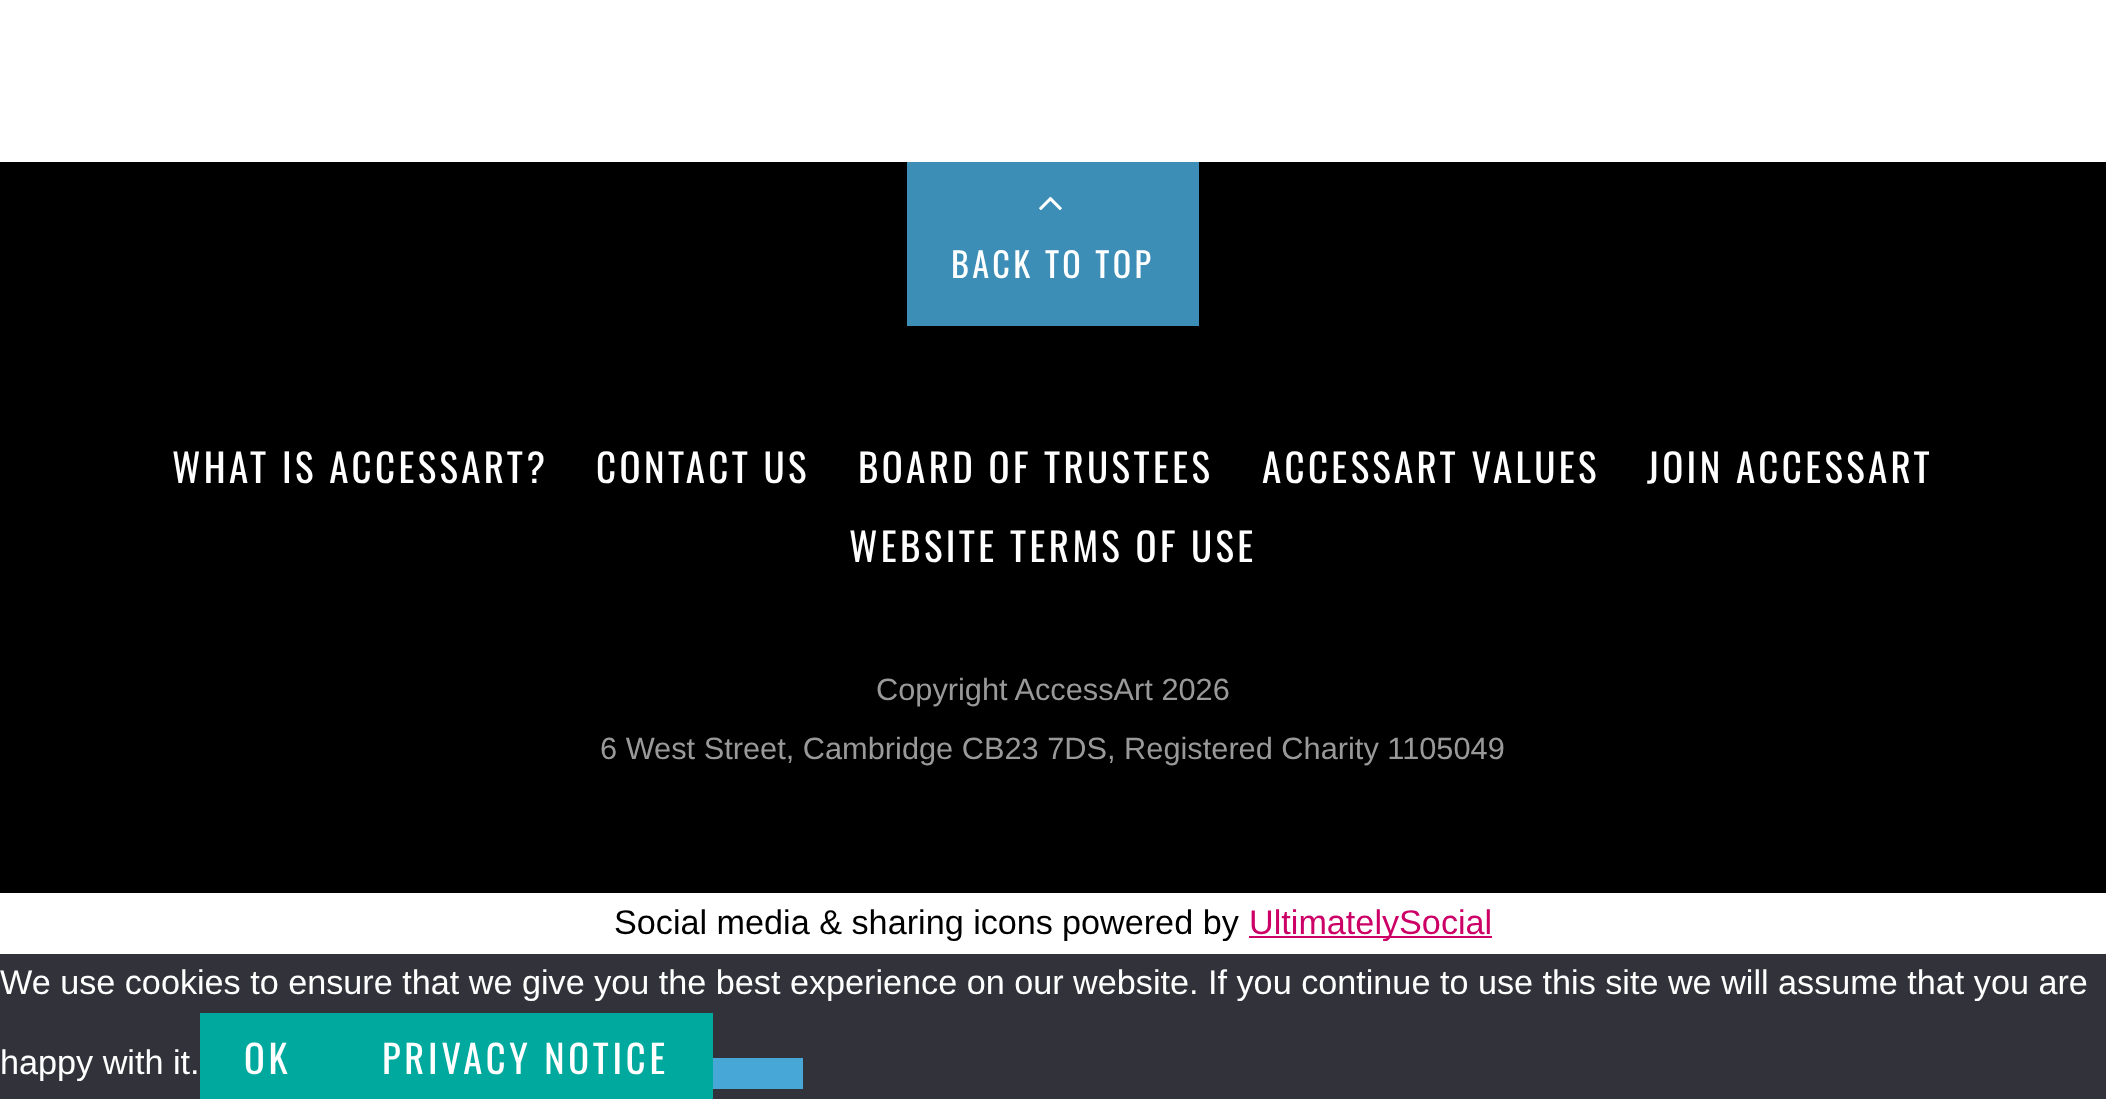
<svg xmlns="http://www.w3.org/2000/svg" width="2106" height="1099">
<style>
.a{font:34.2px Oswald;letter-spacing:3.4px;fill:#fff}
.b{font:39px Oswald;letter-spacing:3.4px;fill:#fff}
.c{font:30.75px Liberation Sans;fill:#999}
.d{font:34.2px Liberation Sans;fill:#000}
.e{font:34.2px Liberation Sans;fill:#c06}
.f{font:34.2px Liberation Sans;fill:#fff}
.g{font:38.5px Oswald;letter-spacing:3.8px;fill:#fff}
</style>
<rect width="100%" height="100%" fill="#fff"/>
<path fill="#000" d="M0 162h2106v731H0z"/>
<path fill="#3c8eb7" d="M907 162h292v164H907z"/>
<image href="1.png" x="1039" y="196" width="23" height="15"/>
<path fill="#c06" d="M1249 936h243v2H1249z"/>
<path fill="#32323a" d="M0 954h2106v145H0z"/>
<path fill="#00a99d" d="M200 1013h513v86H200z"/>
<path fill="#47a7d7" d="M713 1058h90v31H713z"/>
<text class="a" x="951" y="278">BACK TO TOP</text>
<text class="b" x="172" y="483">WHAT IS ACCESSART?</text>
<text class="b" x="596" y="483">CONTACT US</text>
<text class="b" x="858" y="483">BOARD OF TRUSTEES</text>
<text class="b" x="1262" y="483">ACCESSART VALUES</text>
<text class="b" x="1647" y="483">JOIN ACCESSART</text>
<text class="b" x="849" y="562">WEBSITE TERMS OF USE</text>
<text class="c" x="876" y="700">Copyright AccessArt 2026</text>
<text class="c" x="600" y="759">6 West Street, Cambridge CB23 7DS, Registered Charity 1105049</text>
<text class="d" x="614" y="934">Social media &amp; sharing icons</text>
<text class="d" x="1062" y="934">powered by</text>
<text class="e" x="1249" y="934">UltimatelySocial</text>
<text class="f" x="0" y="994">We use cookies to ensure that we give you the best experience on our website. If you continue to use this site we will assume that you are</text>
<text class="f" x="0" y="1074">happy with it.</text>
<text class="g" x="244" y="1074">OK</text>
<text class="g" x="382" y="1074">PRIVACY NOTICE</text>
</svg>
